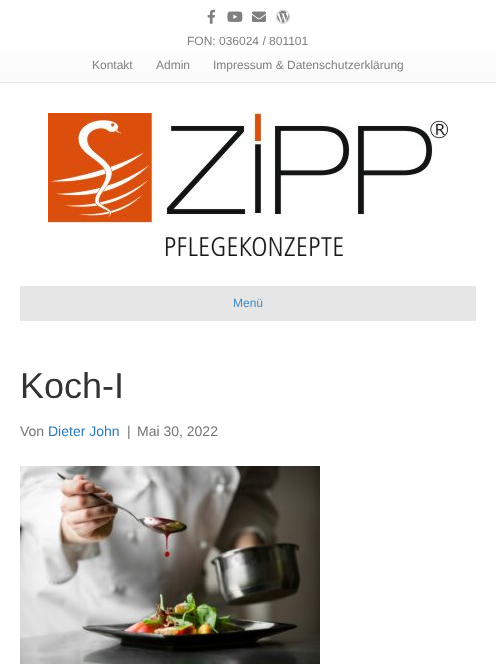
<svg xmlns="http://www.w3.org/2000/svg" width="496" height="664">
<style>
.a{font:12px Liberation Sans;fill:#808080}
.b{font:12px Liberation Sans;fill:#428bca}
.c{font:36px Liberation Sans;fill:#333}
.d{font:14px Liberation Sans;fill:#757575}
.e{font:14px Liberation Sans;fill:#2b7bb9}
</style>
<defs>
<linearGradient id="g1" gradientUnits="userSpaceOnUse" x1="248" y1="0" x2="248" y2="82"><stop offset="0" stop-color="#fff"/><stop offset="1" stop-color="#fbfbfb"/></linearGradient>
</defs>
<rect width="100%" height="100%" fill="#fff"/>
<path fill="url(#g1)" d="M0 51h496v31H0z"/>
<path fill="#e6e6e6" d="M0 82h496v1H0z"/>
<image href="1.png" x="207" y="9" width="9" height="15"/>
<image href="2.png" x="227" y="11" width="16" height="11"/>
<image href="3.png" x="252" y="11" width="14" height="11"/>
<image href="4.png" x="276" y="10" width="14" height="14"/>
<image href="5.png" x="48" y="113" width="400" height="143"/>
<path fill="#e6e6e6" d="M20 286h456v35H20z"/>
<image href="6.png" x="20" y="466" width="300" height="198"/>
<text class="a" x="187" y="45">FON: 036024 / 801101</text>
<text class="a" x="92" y="69">Kontakt</text>
<text class="a" x="156" y="69">Admin</text>
<text class="a" x="213" y="69">Impressum &amp; Datenschutzerklärung</text>
<text class="b" x="233" y="307">Menü</text>
<text class="c" x="20" y="398">Koch-I</text>
<text class="d" x="20" y="436">Von</text>
<text class="e" x="48" y="436">Dieter John</text>
<text class="d" x="127" y="436">|</text>
<text class="d" x="137" y="436">Mai 30, 2022</text>
</svg>
